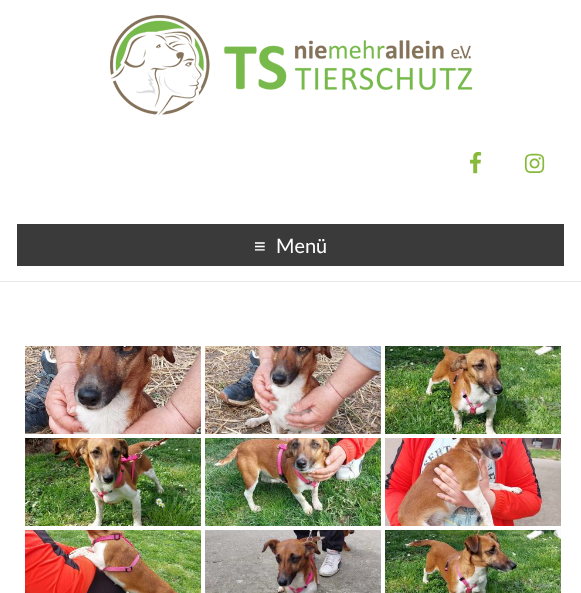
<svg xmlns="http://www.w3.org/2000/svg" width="581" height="593">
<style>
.a{font:20px Liberation Sans;fill:#fff}
.b{font:20px Lato;fill:#fff}
</style>
<rect width="100%" height="100%" fill="#fff"/>
<path fill="#eaeaea" d="M0 281h581v1H0z"/>
<image href="1.png" x="110" y="15" width="362" height="100"/>
<image href="2.png" x="469" y="152" width="13" height="22"/>
<image href="3.png" x="524" y="153" width="21" height="20"/>
<path fill="#3a3a3a" d="M17 224h547v42H17z"/>
<image href="4.png" x="25" y="346" width="176" height="88"/>
<image href="5.png" x="205" y="346" width="176" height="88"/>
<image href="6.png" x="385" y="346" width="176" height="88"/>
<image href="7.png" x="25" y="438" width="176" height="88"/>
<image href="8.png" x="205" y="438" width="176" height="88"/>
<image href="9.png" x="385" y="438" width="176" height="88"/>
<image href="10.png" x="25" y="530" width="176" height="63"/>
<image href="11.png" x="205" y="530" width="176" height="63"/>
<image href="12.png" x="385" y="530" width="176" height="63"/>
<text class="a" x="254" y="253">≡</text>
<text class="b" x="276" y="253">Menü</text>
</svg>
